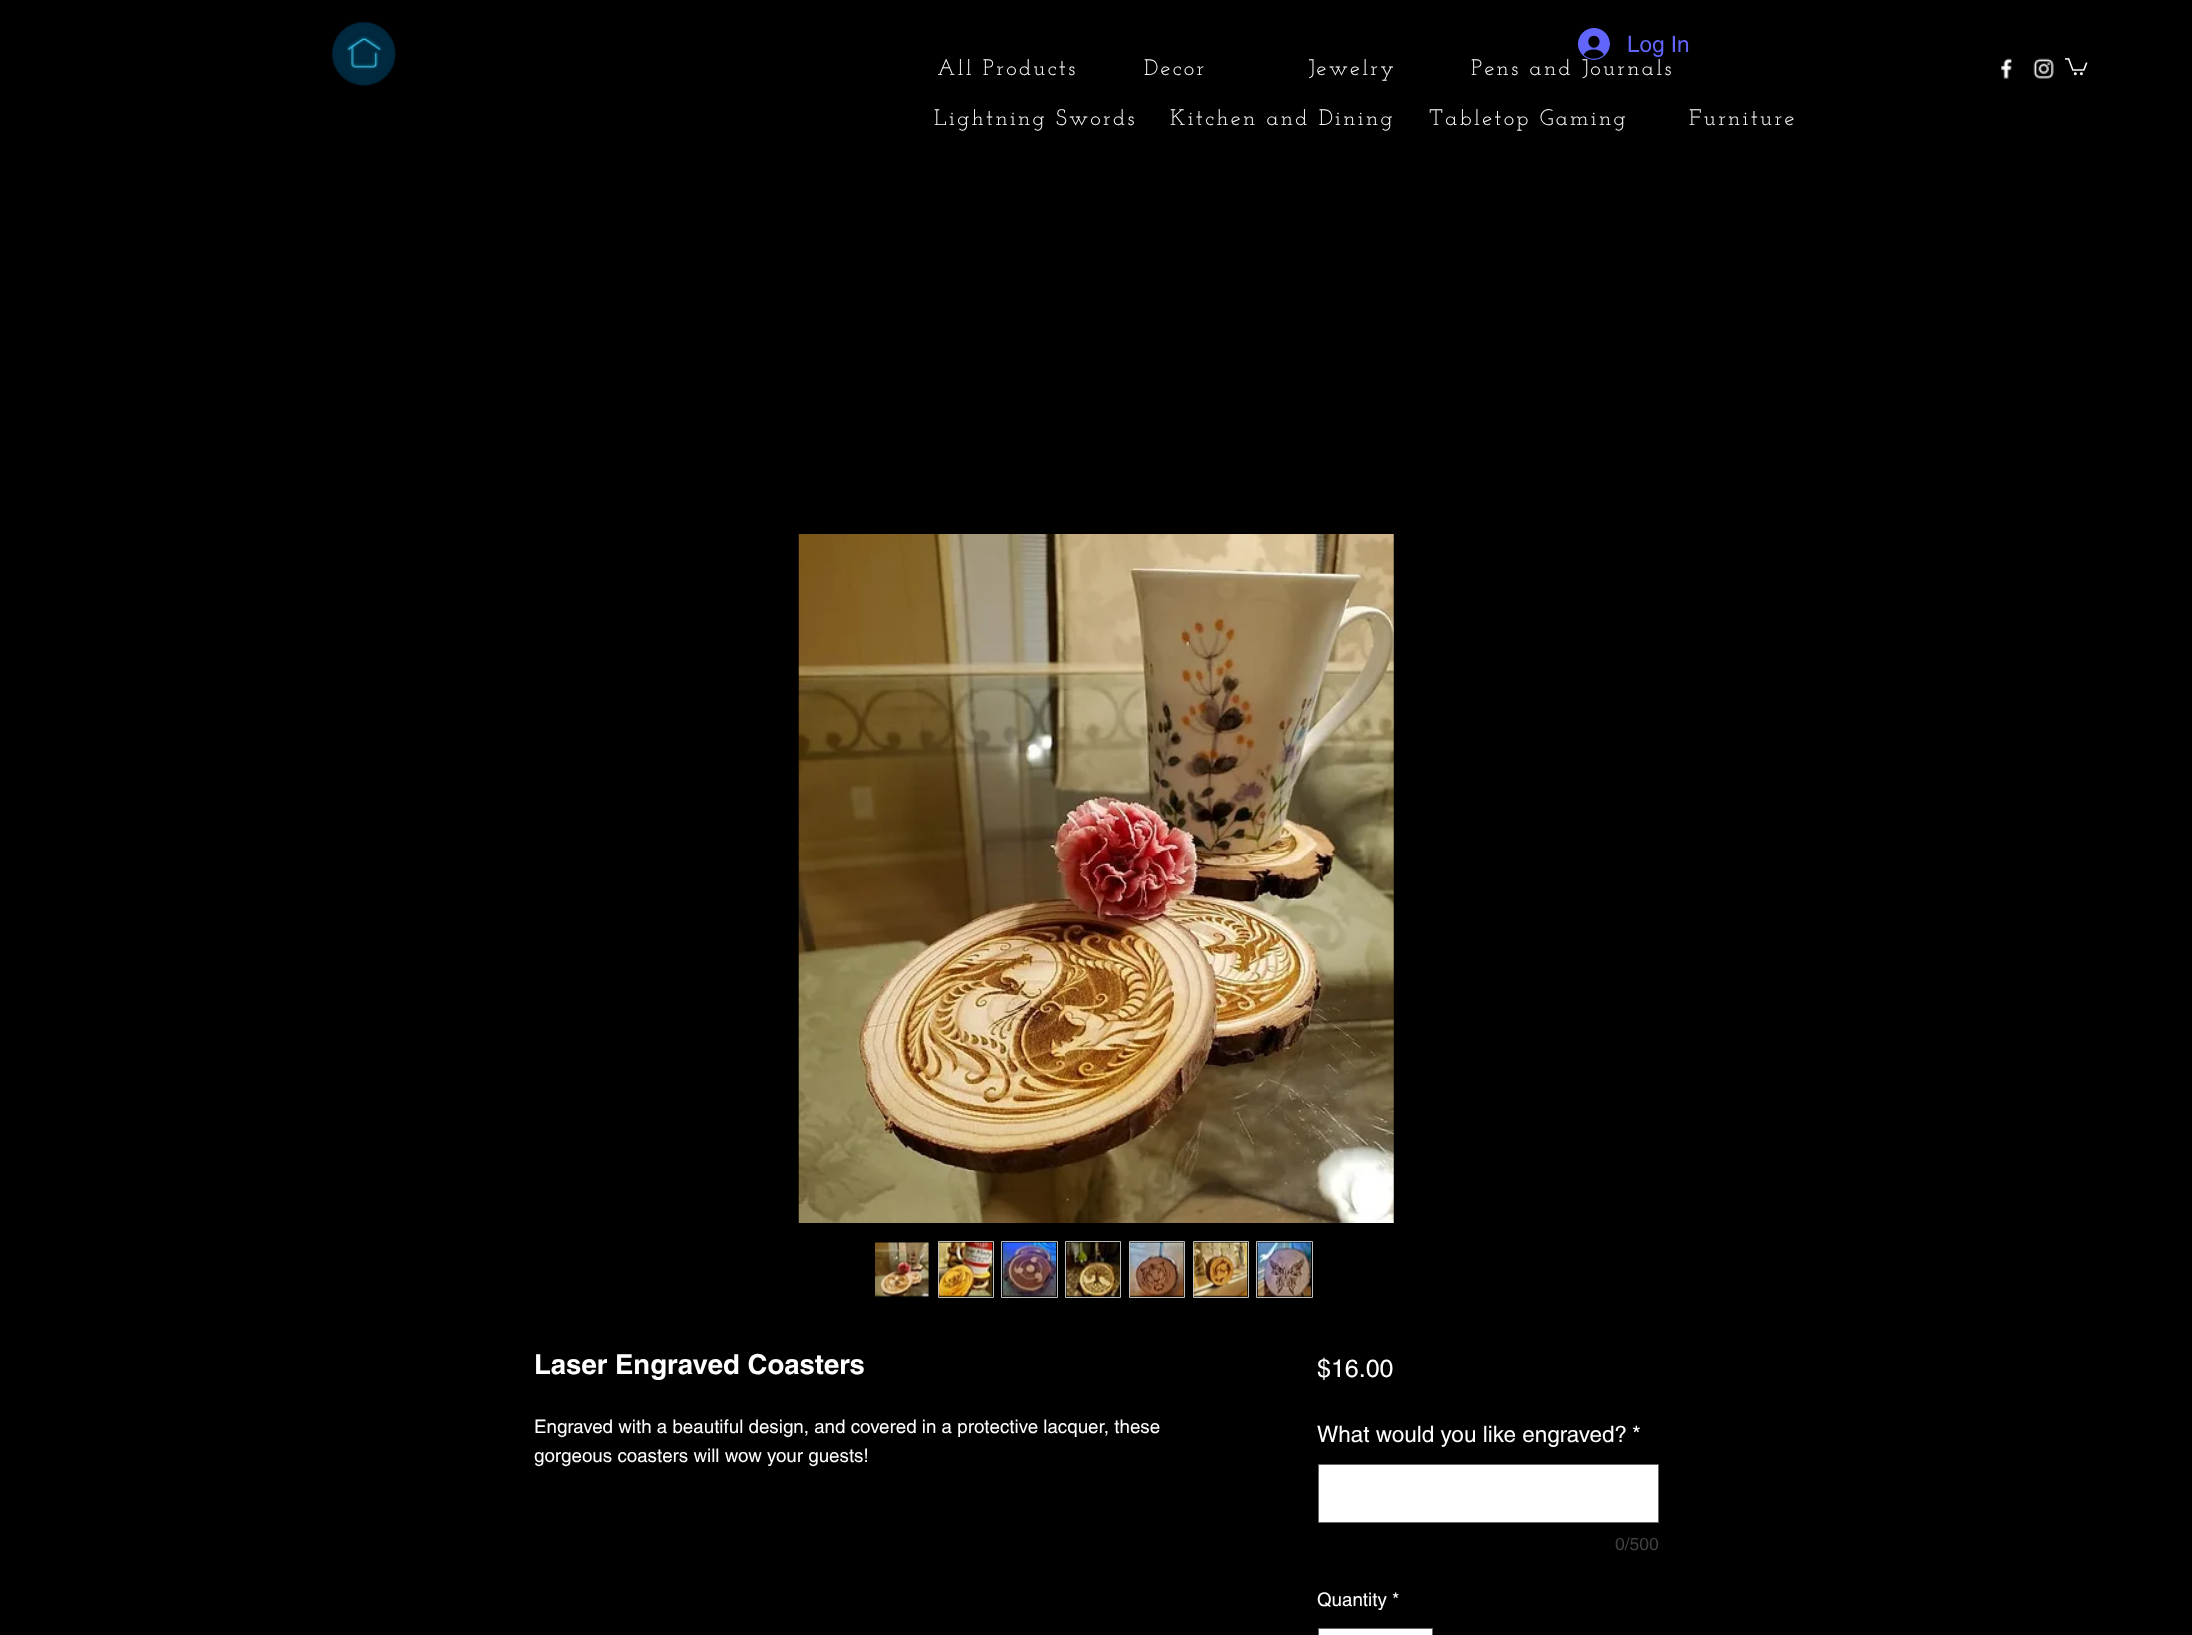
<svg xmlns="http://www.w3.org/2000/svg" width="2192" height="1635">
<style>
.a{font:22.5px helvetica;fill:#6165fa}
.b{font:22.5px Josefin Slab;letter-spacing:2.25px;fill:#fff}
.c{font:bold 27.5px helvetica;fill:#fff}
.d{font:18.75px helvetica;fill:#fff}
.e{font:25px helvetica;fill:#fff}
.f{font:22.5px helvetica;fill:#fff}
.g{font:17.5px helvetica;fill:#404040}
</style>
<defs>
<clipPath id="clip1"><path d="M938 59h140v22H938z"/></clipPath>
<clipPath id="clip2"><path d="M1309 59h87v22H1309z"/></clipPath>
<clipPath id="clip3"><path d="M1471 59h203v22H1471z"/></clipPath>
<clipPath id="clip4"><path d="M934 109h202v22H934z"/></clipPath>
<clipPath id="clip5"><path d="M1170 109h225v22H1170z"/></clipPath>
<clipPath id="clip6"><path d="M1429 109h200v22H1429z"/></clipPath>
</defs>
<rect width="100%" height="100%" fill="#000"/>
<image href="1.png" x="331" y="21" width="66" height="66"/>
<image href="3.png" x="2001" y="58" width="11" height="21"/>
<image href="4.png" x="2033" y="58" width="21" height="21"/>
<image href="5.png" x="2065" y="58" width="23" height="18"/>
<image href="6.png" x="798" y="534" width="596" height="689"/>
<image href="7.png" x="875" y="1242" width="54" height="55"/>
<path fill="none" stroke="#bfbfbf" d="M938.5 1241.5h55v56H938.5z"/>
<image href="8.png" x="938" y="1242" width="55" height="55"/>
<path fill="none" stroke="#bfbfbf" d="M1001.5 1241.5h56v56H1001.5z"/>
<image href="9.png" x="1002" y="1242" width="55" height="55"/>
<path fill="none" stroke="#bfbfbf" d="M1065.5 1241.5h55v56H1065.5z"/>
<image href="10.png" x="1066" y="1242" width="54" height="55"/>
<path fill="none" stroke="#bfbfbf" d="M1129.5 1241.5h55v56H1129.5z"/>
<image href="11.png" x="1130" y="1242" width="54" height="55"/>
<path fill="none" stroke="#bfbfbf" d="M1193.5 1241.5h55v56H1193.5z"/>
<image href="12.png" x="1193" y="1242" width="55" height="55"/>
<path fill="none" stroke="#bfbfbf" d="M1256.5 1241.5h56v56H1256.5z"/>
<image href="13.png" x="1257" y="1242" width="55" height="55"/>
<path fill="#fff" stroke="#666" d="M1318.5 1464.5h340v58H1318.5z"/>
<path fill="#fff" stroke="#666" d="M1318.5 1628.5h114v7H1318.5z"/>
<text class="a" x="1627" y="52">Log In</text>
<g clip-path="url(#clip1)">
<text class="b" x="937" y="75">All Products</text>
</g>
<text class="b" x="1144" y="75">Decor</text>
<g clip-path="url(#clip2)">
<text class="b" x="1308" y="75">Jewelry</text>
</g>
<g clip-path="url(#clip3)">
<text class="b" x="1471" y="75">Pens and Journals</text>
</g>
<image href="2.png" x="1578" y="28" width="32" height="32"/>
<g clip-path="url(#clip4)">
<text class="b" x="934" y="125">Lightning Swords</text>
</g>
<g clip-path="url(#clip5)">
<text class="b" x="1170" y="125">Kitchen and Dining</text>
</g>
<g clip-path="url(#clip6)">
<text class="b" x="1429" y="125">Tabletop Gaming</text>
</g>
<text class="b" x="1689" y="125">Furniture</text>
<text class="c" x="534" y="1374">Laser Engraved Coasters</text>
<text class="d" x="534" y="1433">Engraved with a beautiful design, and covered in a protective lacquer, these</text>
<text class="d" x="534" y="1462">gorgeous coasters will wow your guests!</text>
<text class="e" x="1317" y="1377">$16.00</text>
<text class="f" x="1317" y="1442">What would you like engraved?</text>
<text class="f" x="1632" y="1442">*</text>
<text class="g" x="1615" y="1550">0/500</text>
<text class="d" x="1317" y="1606">Quantity *</text>
</svg>
